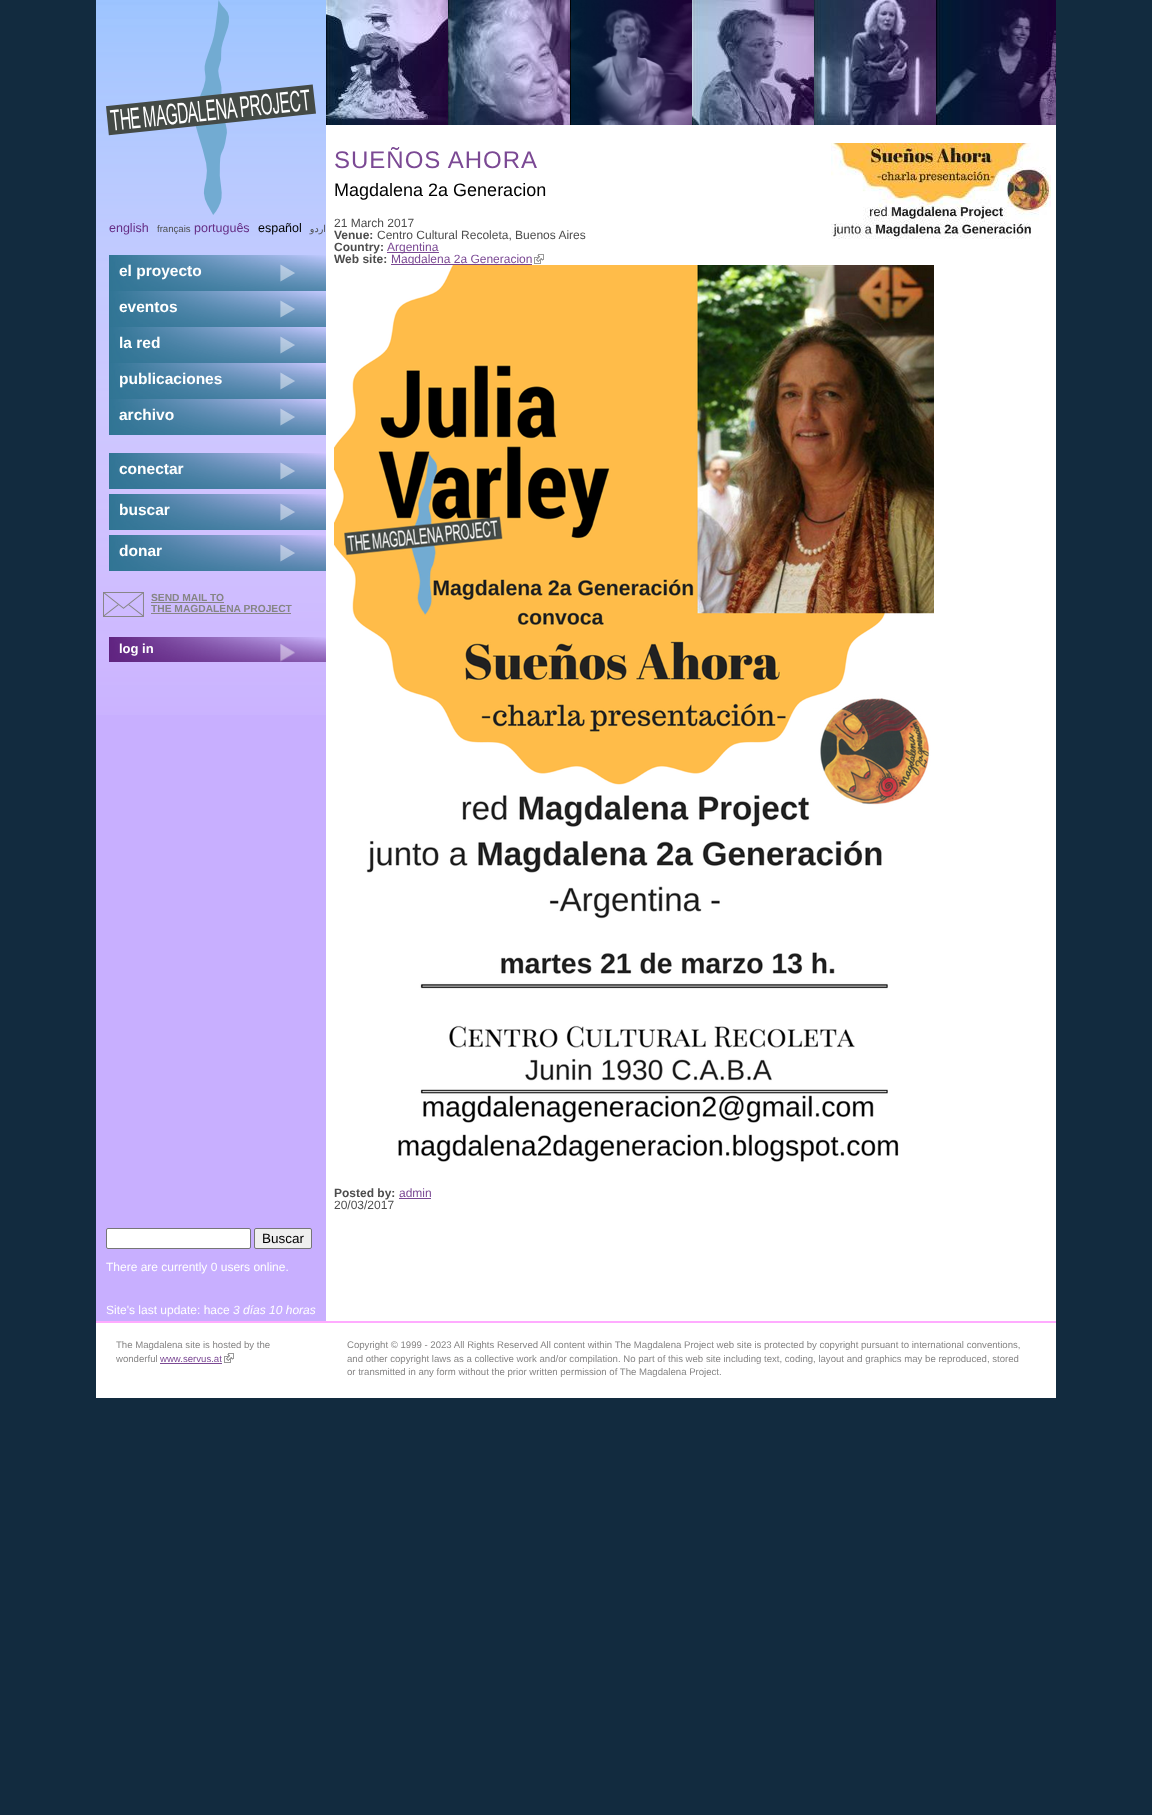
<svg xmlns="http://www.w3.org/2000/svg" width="1152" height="1815">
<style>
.a{font:12.5px Liberation Sans;fill:#662d85}
.b{font:9.6px Liberation Sans;fill:#4d4d4d}
.c{font:12.5px Liberation Sans;fill:#000}
.d{font:9.6px DejaVu Sans;direction:rtl;fill:#4d4d4d}
.e{font:bold 15.5px Liberation Sans;fill:#fff}
.f{font:bold 10.25px Liberation Sans;fill:#868585}
.g{font:bold 13px Liberation Sans;fill:#fff}
.h{font:24px Liberation Sans;letter-spacing:1px;fill:#7b4994}
.i{font:18px Liberation Sans;fill:#000}
.j{font:12px Liberation Sans;fill:#4d4d4d}
.k{font:bold 12px Liberation Sans;fill:#4d4d4d}
.l{font:12px Liberation Sans;fill:#7b4994}
.m{font:13.5px Liberation Sans;fill:#000}
.n{font:12px Liberation Sans;fill:#fff}
.o{font:italic 12px Liberation Sans;fill:#fff}
.p{font:9.6px Liberation Sans;fill:#868585}
.q{font:9.6px Liberation Sans;fill:#7b4994}
</style>
<rect width="100%" height="100%" fill="#122b3f"/>
<path fill="#fff" d="M326 125h730v1196H326z"/>
<path fill="#c8afff" d="M96 5h230v1316H96z"/>
<image href="1.png" x="96" y="0" width="230" height="715"/>
<image href="2.png" x="106" y="0" width="210" height="215"/>
<image href="3.png" x="326" y="0" width="122" height="125"/>
<image href="4.png" x="448" y="0" width="122" height="125"/>
<image href="5.png" x="570" y="0" width="122" height="125"/>
<image href="6.png" x="692" y="0" width="122" height="125"/>
<image href="7.png" x="814" y="0" width="122" height="125"/>
<image href="8.png" x="936" y="0" width="120" height="125"/>
<image href="9.png" x="109" y="255" width="217" height="36"/>
<image href="10.png" x="109" y="291" width="217" height="36"/>
<image href="11.png" x="109" y="327" width="217" height="36"/>
<image href="12.png" x="109" y="363" width="217" height="36"/>
<image href="13.png" x="109" y="399" width="217" height="36"/>
<image href="14.png" x="109" y="453" width="217" height="36"/>
<image href="15.png" x="109" y="494" width="217" height="36"/>
<image href="16.png" x="109" y="535" width="217" height="36"/>
<image href="17.png" x="103" y="592" width="41" height="25"/>
<path fill="#868585" d="M151 602h73v1H151z"/>
<path fill="#868585" d="M151 613h140v1H151z"/>
<image href="18.png" x="109" y="637" width="217" height="25"/>
<image href="19.png" x="831" y="143" width="220" height="96"/>
<path fill="#7b4994" d="M387 252h52v1H387z"/>
<path fill="#7b4994" d="M391 264h141v1H391z"/>
<image href="20.png" x="534" y="254" width="10" height="10"/>
<path fill="#7b4994" d="M399 1198h32v1H399z"/>
<rect fill="#fff" stroke="#767676" x="106.5" y="1228.5" width="144" height="20" rx="1.5"/>
<rect fill="#efefef" stroke="#767676" x="254.5" y="1228.5" width="57" height="20" rx="1.5"/>
<path fill="#fff" d="M96 1323h960v75H96z"/>
<path fill="#ffabff" d="M96 1321h960v2H96z"/>
<path fill="#7b4994" d="M160 1363h62v1H160z"/>
<image href="20.png" x="224" y="1353" width="10" height="10"/>
<text class="a" x="109" y="232">english</text>
<text class="b" x="157" y="232">français</text>
<text class="a" x="194" y="232">português</text>
<text class="c" x="258" y="232">español</text>
<text class="d" x="326" y="232">اردو</text>
<text class="e" x="119" y="276">el proyecto</text>
<text class="e" x="119" y="312">eventos</text>
<text class="e" x="119" y="348">la red</text>
<text class="e" x="119" y="384">publicaciones</text>
<text class="e" x="119" y="420">archivo</text>
<text class="e" x="119" y="474">conectar</text>
<text class="e" x="119" y="515">buscar</text>
<text class="e" x="119" y="556">donar</text>
<text class="f" x="151" y="601">SEND MAIL TO</text>
<text class="f" x="151" y="612">THE MAGDALENA PROJECT</text>
<text class="g" x="119" y="653">log in</text>
<text class="h" x="334" y="168">SUEÑOS AHORA</text>
<text class="i" x="334" y="196">Magdalena 2a Generacion</text>
<text class="j" x="334" y="227">21 March 2017</text>
<text class="k" x="334" y="239">Venue:</text>
<text class="j" x="377" y="239">Centro Cultural Recoleta, Buenos Aires</text>
<text class="k" x="334" y="251">Country:</text>
<text class="l" x="387" y="251">Argentina</text>
<text class="k" x="334" y="263">Web site:</text>
<text class="l" x="391" y="263">Magdalena 2a Generacion</text>
<image href="21.png" x="334" y="265" width="600" height="897"/>
<text class="k" x="334" y="1197">Posted by:</text>
<text class="l" x="399" y="1197">admin</text>
<text class="j" x="334" y="1209">20/03/2017</text>
<text class="m" x="262" y="1243">Buscar</text>
<text class="n" x="106" y="1271">There are currently 0 users online.</text>
<text class="n" x="106" y="1314">Site's last update: hace</text>
<text class="o" x="233" y="1314">3 días 10 horas</text>
<text class="p" x="116" y="1348">The Magdalena site is hosted by the</text>
<text class="p" x="116" y="1362">wonderful</text>
<text class="q" x="160" y="1362">www.servus.at</text>
<text class="p" x="347" y="1348">Copyright © 1999 - 2023 All Rights Reserved All content within The Magdalena Project web site is protected by copyright pursuant to international conventions,</text>
<text class="p" x="347" y="1362">and other copyright laws as a collective work and/or compilation. No part of this web site including text, coding, layout and graphics may be reproduced, stored</text>
<text class="p" x="347" y="1375">or transmitted in any form without the prior written permission of The Magdalena Project.</text>
</svg>
